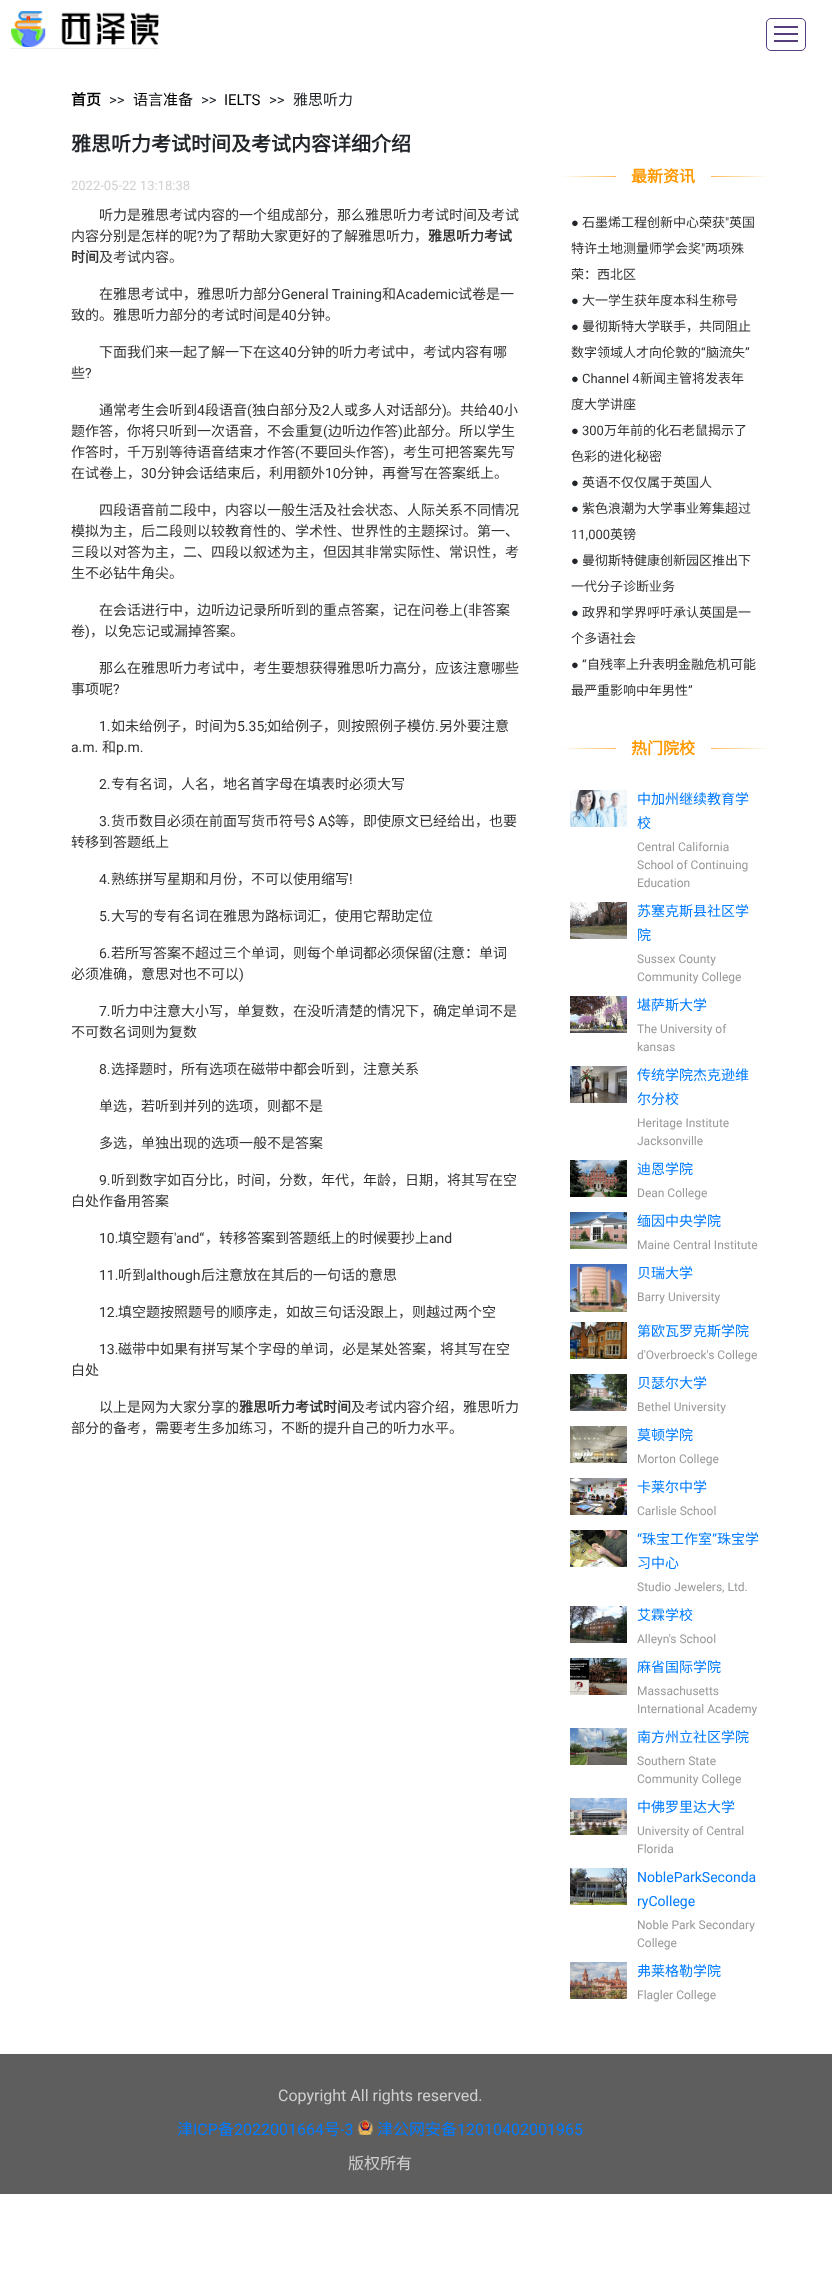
<svg xmlns="http://www.w3.org/2000/svg" width="832" height="2280">
<style>
.a{font:bold 15px Noto Sans CJK SC;fill:#000}
.b{font:15px Roboto;fill:#212529}
.c{font:15px Noto Sans CJK SC;fill:#000}
.d{font:15px Roboto;fill:#000}
.e{font:15px Noto Sans CJK SC;fill:#212529}
.f{font:bold 20px Noto Sans CJK SC;fill:#212529}
.g{font:13px Roboto;fill:#d0d0d0}
.h{font:14px Noto Sans CJK SC;fill:#333}
.i{font:14px Roboto;fill:#333}
.j{font:bold 14px Noto Sans CJK SC;fill:#333}
.k{font:bold 16px Noto Sans CJK SC;fill:#f90}
.l{font:13px Noto Sans CJK SC;fill:#333}
.m{font:13px Roboto;fill:#333}
.n{font:13px Liberation Sans;fill:#212529}
.o{font:14px Noto Sans CJK SC;fill:#007bff}
.p{font:12px Roboto;fill:#999}
.q{font:14px Roboto;fill:#007bff}
.r{font:16px Roboto;fill:#d0d0d0}
.s{font:16px Noto Sans CJK SC;fill:#007bff}
.t{font:16px Roboto;fill:#007bff}
.u{font:16px Noto Sans CJK SC;fill:#d0d0d0}
</style>
<rect width="100%" height="100%" fill="#fff"/>
<path fill="#efefef" d="M10 48h149v1H10z"/>
<image href="1.png" x="11" y="11" width="148" height="37"/>
<rect fill="none" stroke="#563d7c" x="766.5" y="18.5" width="39" height="32" rx="4.5"/>
<path fill="#563d7c" d="M774 26h24v2H774z"/>
<path fill="#563d7c" d="M774 33h24v2H774z"/>
<path fill="#563d7c" d="M774 40h24v2H774z"/>
<image href="2.png" x="563" y="176" width="205" height="1"/>
<path fill="#fff" d="M616 176h95v1H616z"/>
<image href="2.png" x="563" y="748" width="205" height="1"/>
<path fill="#fff" d="M616 748h95v1H616z"/>
<image href="3.png" x="570" y="790" width="57" height="37"/>
<image href="4.png" x="570" y="902" width="57" height="37"/>
<image href="5.png" x="570" y="996" width="57" height="37"/>
<image href="6.png" x="570" y="1066" width="57" height="37"/>
<image href="7.png" x="570" y="1160" width="57" height="37"/>
<image href="8.png" x="570" y="1212" width="57" height="37"/>
<image href="9.png" x="570" y="1264" width="57" height="48"/>
<image href="10.png" x="570" y="1322" width="57" height="37"/>
<image href="11.png" x="570" y="1374" width="57" height="37"/>
<image href="12.png" x="570" y="1426" width="57" height="37"/>
<image href="13.png" x="570" y="1478" width="57" height="37"/>
<image href="14.png" x="570" y="1530" width="57" height="37"/>
<image href="15.png" x="570" y="1606" width="57" height="37"/>
<image href="16.png" x="570" y="1658" width="57" height="37"/>
<image href="17.png" x="570" y="1728" width="57" height="37"/>
<image href="18.png" x="570" y="1798" width="57" height="37"/>
<image href="19.png" x="570" y="1868" width="57" height="37"/>
<image href="20.png" x="570" y="1962" width="57" height="37"/>
<path fill="#5e5e5e" d="M0 2054h832v140H0z"/>
<image href="21.png" x="358" y="2120" width="15" height="15"/>
<text class="a" x="71" y="105">首页</text>
<text class="b" x="109" y="105">&gt;&gt;</text>
<text class="c" x="133" y="105">语言准备</text>
<text class="b" x="201" y="105">&gt;&gt;</text>
<text class="d" x="224" y="105">IELTS</text>
<text class="b" x="269" y="105">&gt;&gt;</text>
<text class="e" x="293" y="105">雅思听力</text>
<text class="f" x="71" y="151">雅思听力考试时间及考试内容详细介绍</text>
<text class="g" x="71" y="190">2022-05-22 13:18:38</text>
<text class="h" x="99" y="220">听力是雅思考试内容的一个组成部分，那么雅思听力考试时间及考试</text>
<text class="h" x="71" y="241">内容分别是怎样的呢</text>
<text class="i" x="197" y="241">?</text>
<text class="h" x="204" y="241">为了帮助大家更好的了解雅思听力，</text>
<text class="j" x="428" y="241">雅思听力考试</text>
<text class="j" x="71" y="262">时间</text>
<text class="h" x="99" y="262">及考试内容。</text>
<text class="h" x="99" y="299">在雅思考试中，雅思听力部分</text>
<text class="i" x="281" y="299">General Training</text>
<text class="h" x="382" y="299">和</text>
<text class="i" x="396" y="299">Academic</text>
<text class="h" x="458" y="299">试卷是一</text>
<text class="h" x="71" y="320">致的。雅思听力部分的考试时间是</text>
<text class="i" x="281" y="320">40</text>
<text class="h" x="297" y="320">分钟。</text>
<text class="h" x="99" y="357">下面我们来一起了解一下在这</text>
<text class="i" x="281" y="357">40</text>
<text class="h" x="297" y="357">分钟的听力考试中，考试内容有哪</text>
<text class="h" x="71" y="378">些</text>
<text class="i" x="85" y="378">?</text>
<text class="h" x="99" y="415">通常考生会听到</text>
<text class="i" x="197" y="415">4</text>
<text class="h" x="205" y="415">段语音</text>
<text class="i" x="247" y="415">(</text>
<text class="h" x="252" y="415">独白部分及</text>
<text class="i" x="322" y="415">2</text>
<text class="h" x="330" y="415">人或多人对话部分</text>
<text class="i" x="442" y="415">)</text>
<text class="h" x="446" y="415">。共给</text>
<text class="i" x="488" y="415">40</text>
<text class="h" x="504" y="415">小</text>
<text class="h" x="71" y="436">题作答，你将只听到一次语音，不会重复</text>
<text class="i" x="323" y="436">(</text>
<text class="h" x="328" y="436">边听边作答</text>
<text class="i" x="398" y="436">)</text>
<text class="h" x="403" y="436">此部分。所以学生</text>
<text class="h" x="71" y="457">作答时，千万别等待语音结束才作答</text>
<text class="i" x="295" y="457">(</text>
<text class="h" x="300" y="457">不要回头作答</text>
<text class="i" x="384" y="457">)</text>
<text class="h" x="389" y="457">，考生可把答案先写</text>
<text class="h" x="71" y="478">在试卷上，</text>
<text class="i" x="141" y="478">30</text>
<text class="h" x="157" y="478">分钟会话结束后，利用额外</text>
<text class="i" x="325" y="478">10</text>
<text class="h" x="340" y="478">分钟，再誊写在答案纸上。</text>
<text class="h" x="99" y="515">四段语音前二段中，内容以一般生活及社会状态、人际关系不同情况</text>
<text class="h" x="71" y="536">模拟为主，后二段则以较教育性的、学术性、世界性的主题探讨。第一、</text>
<text class="h" x="71" y="557">三段以对答为主，二、四段以叙述为主，但因其非常实际性、常识性，考</text>
<text class="h" x="71" y="578">生不必钻牛角尖。</text>
<text class="h" x="99" y="615">在会话进行中，边听边记录所听到的重点答案，记在问卷上</text>
<text class="i" x="463" y="615">(</text>
<text class="h" x="468" y="615">非答案</text>
<text class="h" x="71" y="636">卷</text>
<text class="i" x="85" y="636">)</text>
<text class="h" x="90" y="636">，以免忘记或漏掉答案。</text>
<text class="h" x="99" y="673">那么在雅思听力考试中，考生要想获得雅思听力高分，应该注意哪些</text>
<text class="h" x="71" y="694">事项呢</text>
<text class="i" x="113" y="694">?</text>
<text class="i" x="99" y="731">1.</text>
<text class="h" x="111" y="731">如未给例子，时间为</text>
<text class="i" x="237" y="731">5.35;</text>
<text class="h" x="267" y="731">如给例子，则按照例子模仿</text>
<text class="i" x="435" y="731">.</text>
<text class="h" x="439" y="731">另外要注意</text>
<text class="i" x="71" y="752">a.m.</text>
<text class="h" x="102" y="752">和</text>
<text class="i" x="116" y="752">p.m.</text>
<text class="i" x="99" y="789">2.</text>
<text class="h" x="111" y="789">专有名词，人名，地名首字母在填表时必须大写</text>
<text class="i" x="99" y="826">3.</text>
<text class="h" x="111" y="826">货币数目必须在前面写货币符号</text>
<text class="i" x="307" y="826">$ A$</text>
<text class="h" x="335" y="826">等，即使原文已经给出，也要</text>
<text class="h" x="71" y="847">转移到答题纸上</text>
<text class="i" x="99" y="884">4.</text>
<text class="h" x="111" y="884">熟练拼写星期和月份，不可以使用缩写</text>
<text class="i" x="349" y="884">!</text>
<text class="i" x="99" y="921">5.</text>
<text class="h" x="111" y="921">大写的专有名词在雅思为路标词汇，使用它帮助定位</text>
<text class="i" x="99" y="958">6.</text>
<text class="h" x="111" y="958">若所写答案不超过三个单词，则每个单词都必须保留</text>
<text class="i" x="433" y="958">(</text>
<text class="h" x="437" y="958">注意：单词</text>
<text class="h" x="71" y="979">必须准确，意思对也不可以</text>
<text class="i" x="239" y="979">)</text>
<text class="i" x="99" y="1016">7.</text>
<text class="h" x="111" y="1016">听力中注意大小写，单复数，在没听清楚的情况下，确定单词不是</text>
<text class="h" x="71" y="1037">不可数名词则为复数</text>
<text class="i" x="99" y="1074">8.</text>
<text class="h" x="111" y="1074">选择题时，所有选项在磁带中都会听到，注意关系</text>
<text class="h" x="99" y="1111">单选，若听到并列的选项，则都不是</text>
<text class="h" x="99" y="1148">多选，单独出现的选项一般不是答案</text>
<text class="i" x="99" y="1185">9.</text>
<text class="h" x="111" y="1185">听到数字如百分比，时间，分数，年代，年龄，日期，将其写在空</text>
<text class="h" x="71" y="1206">白处作备用答案</text>
<text class="i" x="99" y="1243">10.</text>
<text class="h" x="118" y="1243">填空题有</text>
<text class="i" x="174" y="1243">'and“</text>
<text class="h" x="205" y="1243">，转移答案到答题纸上的时候要抄上</text>
<text class="i" x="429" y="1243">and</text>
<text class="i" x="99" y="1280">11.</text>
<text class="h" x="118" y="1280">听到</text>
<text class="i" x="146" y="1280">although</text>
<text class="h" x="201" y="1280">后注意放在其后的一句话的意思</text>
<text class="i" x="99" y="1317">12.</text>
<text class="h" x="118" y="1317">填空题按照题号的顺序走，如故三句话没跟上，则越过两个空</text>
<text class="i" x="99" y="1354">13.</text>
<text class="h" x="118" y="1354">磁带中如果有拼写某个字母的单词，必是某处答案，将其写在空</text>
<text class="h" x="71" y="1375">白处</text>
<text class="h" x="99" y="1412">以上是网为大家分享的</text>
<text class="j" x="239" y="1412">雅思听力考试时间</text>
<text class="h" x="351" y="1412">及考试内容介绍，雅思听力</text>
<text class="h" x="71" y="1433">部分的备考，需要考生多加练习，不断的提升自己的听力水平。</text>
<text class="k" x="631" y="182">最新资讯</text>
<text class="l" x="582" y="227">石墨烯工程创新中心荣获</text>
<text class="m" x="725" y="227">"</text>
<text class="l" x="729" y="227">英国</text>
<text class="n" x="571" y="227">●</text>
<text class="l" x="571" y="253">特许土地测量师学会奖</text>
<text class="m" x="701" y="253">"</text>
<text class="l" x="705" y="253">两项殊</text>
<text class="l" x="571" y="279">荣：西北区</text>
<text class="n" x="571" y="305">●</text>
<text class="l" x="582" y="305">大一学生获年度本科生称号</text>
<text class="n" x="571" y="331">●</text>
<text class="l" x="582" y="331">曼彻斯特大学联手，共同阻止</text>
<text class="l" x="571" y="357">数字领域人才向伦敦的</text>
<text class="m" x="701" y="357">“</text>
<text class="l" x="706" y="357">脑流失</text>
<text class="m" x="745" y="357">”</text>
<text class="n" x="571" y="383">●</text>
<text class="m" x="582" y="383">Channel 4</text>
<text class="l" x="640" y="383">新闻主管将发表年</text>
<text class="l" x="571" y="409">度大学讲座</text>
<text class="n" x="571" y="435">●</text>
<text class="m" x="582" y="435">300</text>
<text class="l" x="604" y="435">万年前的化石老鼠揭示了</text>
<text class="l" x="571" y="461">色彩的进化秘密</text>
<text class="n" x="571" y="487">●</text>
<text class="l" x="582" y="487">英语不仅仅属于英国人</text>
<text class="n" x="571" y="513">●</text>
<text class="l" x="582" y="513">紫色浪潮为大学事业筹集超过</text>
<text class="m" x="571" y="539">11,000</text>
<text class="l" x="610" y="539">英镑</text>
<text class="n" x="571" y="565">●</text>
<text class="l" x="582" y="565">曼彻斯特健康创新园区推出下</text>
<text class="l" x="571" y="591">一代分子诊断业务</text>
<text class="n" x="571" y="617">●</text>
<text class="l" x="582" y="617">政界和学界呼吁承认英国是一</text>
<text class="l" x="571" y="643">个多语社会</text>
<text class="m" x="582" y="669">“</text>
<text class="l" x="587" y="669">自残率上升表明金融危机可能</text>
<text class="n" x="571" y="669">●</text>
<text class="l" x="571" y="695">最严重影响中年男性</text>
<text class="m" x="688" y="695">”</text>
<text class="k" x="631" y="754">热门院校</text>
<text class="o" x="637" y="804">中加州继续教育学</text>
<text class="o" x="637" y="828">校</text>
<text class="p" x="637" y="851">Central California</text>
<text class="p" x="637" y="869">School of Continuing</text>
<text class="p" x="637" y="887">Education</text>
<text class="o" x="637" y="916">苏塞克斯县社区学</text>
<text class="o" x="637" y="940">院</text>
<text class="p" x="637" y="963">Sussex County</text>
<text class="p" x="637" y="981">Community College</text>
<text class="o" x="637" y="1010">堪萨斯大学</text>
<text class="p" x="637" y="1033">The University of</text>
<text class="p" x="637" y="1051">kansas</text>
<text class="o" x="637" y="1080">传统学院杰克逊维</text>
<text class="o" x="637" y="1104">尔分校</text>
<text class="p" x="637" y="1127">Heritage Institute</text>
<text class="p" x="637" y="1145">Jacksonville</text>
<text class="o" x="637" y="1174">迪恩学院</text>
<text class="p" x="637" y="1197">Dean College</text>
<text class="o" x="637" y="1226">缅因中央学院</text>
<text class="p" x="637" y="1249">Maine Central Institute</text>
<text class="o" x="637" y="1278">贝瑞大学</text>
<text class="p" x="637" y="1301">Barry University</text>
<text class="o" x="637" y="1336">第欧瓦罗克斯学院</text>
<text class="p" x="637" y="1359">d'Overbroeck's College</text>
<text class="o" x="637" y="1388">贝瑟尔大学</text>
<text class="p" x="637" y="1411">Bethel University</text>
<text class="o" x="637" y="1440">莫顿学院</text>
<text class="p" x="637" y="1463">Morton College</text>
<text class="o" x="637" y="1492">卡莱尔中学</text>
<text class="p" x="637" y="1515">Carlisle School</text>
<text class="q" x="637" y="1544">“</text>
<text class="o" x="642" y="1544">珠宝工作室</text>
<text class="q" x="712" y="1544">”</text>
<text class="o" x="717" y="1544">珠宝学</text>
<text class="o" x="637" y="1568">习中心</text>
<text class="p" x="637" y="1591">Studio Jewelers, Ltd.</text>
<text class="o" x="637" y="1620">艾霖学校</text>
<text class="p" x="637" y="1643">Alleyn's School</text>
<text class="o" x="637" y="1672">麻省国际学院</text>
<text class="p" x="637" y="1695">Massachusetts</text>
<text class="p" x="637" y="1713">International Academy</text>
<text class="o" x="637" y="1742">南方州立社区学院</text>
<text class="p" x="637" y="1765">Southern State</text>
<text class="p" x="637" y="1783">Community College</text>
<text class="o" x="637" y="1812">中佛罗里达大学</text>
<text class="p" x="637" y="1835">University of Central</text>
<text class="p" x="637" y="1853">Florida</text>
<text class="q" x="637" y="1882">NobleParkSeconda</text>
<text class="q" x="637" y="1906">ryCollege</text>
<text class="p" x="637" y="1929">Noble Park Secondary</text>
<text class="p" x="637" y="1947">College</text>
<text class="o" x="637" y="1976">弗莱格勒学院</text>
<text class="p" x="637" y="1999">Flagler College</text>
<text class="r" x="278" y="2101">Copyright All rights reserved.</text>
<text class="s" x="177" y="2135">津</text>
<text class="t" x="193" y="2135">ICP</text>
<text class="s" x="218" y="2135">备</text>
<text class="t" x="234" y="2135">2022001664</text>
<text class="s" x="324" y="2135">号</text>
<text class="t" x="340" y="2135">-3</text>
<text class="s" x="377" y="2135">津公网安备</text>
<text class="t" x="457" y="2135">12010402001965</text>
<text class="u" x="348" y="2169">版权所有</text>
</svg>
